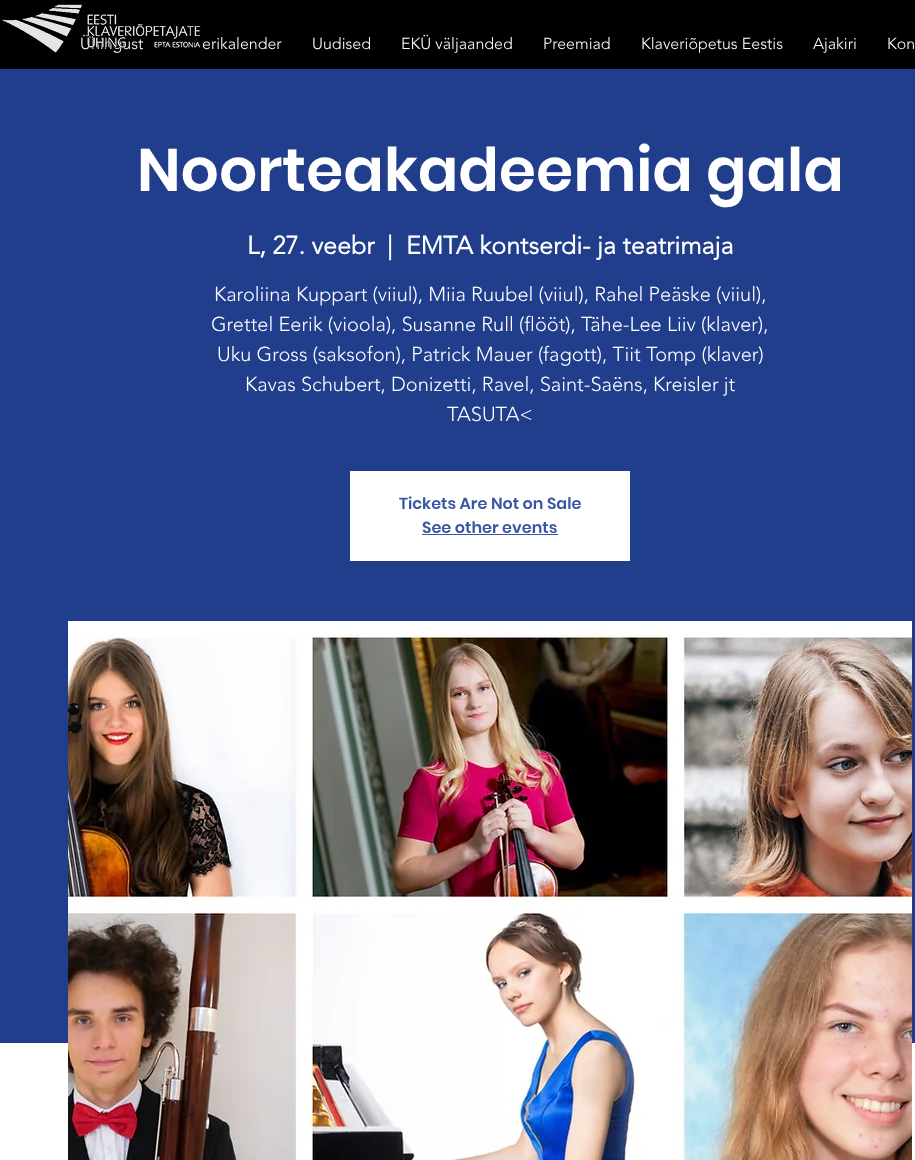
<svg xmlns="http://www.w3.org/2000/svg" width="915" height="1160">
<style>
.a{font:300 16px 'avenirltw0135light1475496';fill:#fff}
.b{font:600 60px Poppins;fill:#fff}
.c{font:bold 25px 'avenirltw0135light1475496';fill:#fff}
.d{font:300 20px 'avenirltw0135light1475496';fill:#fff}
.e{font:600 16px Poppins;fill:#3a57a6}
</style>
<rect width="100%" height="100%" fill="#fff"/>
<path fill="#000" d="M0 0h915v69H0z"/>
<path fill="#213e8c" d="M0 69h915v974H0z"/>
<path fill="#fff" d="M350 471h280v90H350z"/>
<path fill="#3a57a6" d="M422 534h136v1H422z"/>
<image href="2.png" x="68" y="621" width="844" height="539"/>
<text class="a" x="80" y="49">Ühingust</text>
<image href="1.png" x="2" y="4" width="199" height="49"/>
<text class="a" x="202" y="49">erikalender</text>
<text class="a" x="312" y="49">Uudised</text>
<text class="a" x="401" y="49">EKÜ väljaanded</text>
<text class="a" x="543" y="49">Preemiad</text>
<text class="a" x="641" y="49">Klaveriõpetus Eestis</text>
<text class="a" x="813" y="49">Ajakiri</text>
<text class="a" x="887" y="49">Kon</text>
<text class="b" x="137" y="191">Noorteakadeemia gala</text>
<text class="c" x="247" y="254">L, 27. veebr</text>
<text class="c" x="387" y="254">|</text>
<text class="c" x="406" y="254">EMTA kontserdi- ja teatrimaja</text>
<text class="d" x="214" y="301">Karoliina Kuppart (viiul), Miia Ruubel (viiul), Rahel Peäske (viiul),</text>
<text class="d" x="211" y="331">Grettel Eerik (vioola), Susanne Rull (flööt), Tähe-Lee Liiv (klaver),</text>
<text class="d" x="217" y="361">Uku Gross (saksofon), Patrick Mauer (fagott), Tiit Tomp (klaver)</text>
<text class="d" x="245" y="391">Kavas Schubert, Donizetti, Ravel, Saint-Saëns, Kreisler jt</text>
<text class="d" x="447" y="421">TASUTA&lt;</text>
<text class="e" x="399" y="509">Tickets Are Not on Sale</text>
<text class="e" x="422" y="533">See other events</text>
</svg>
